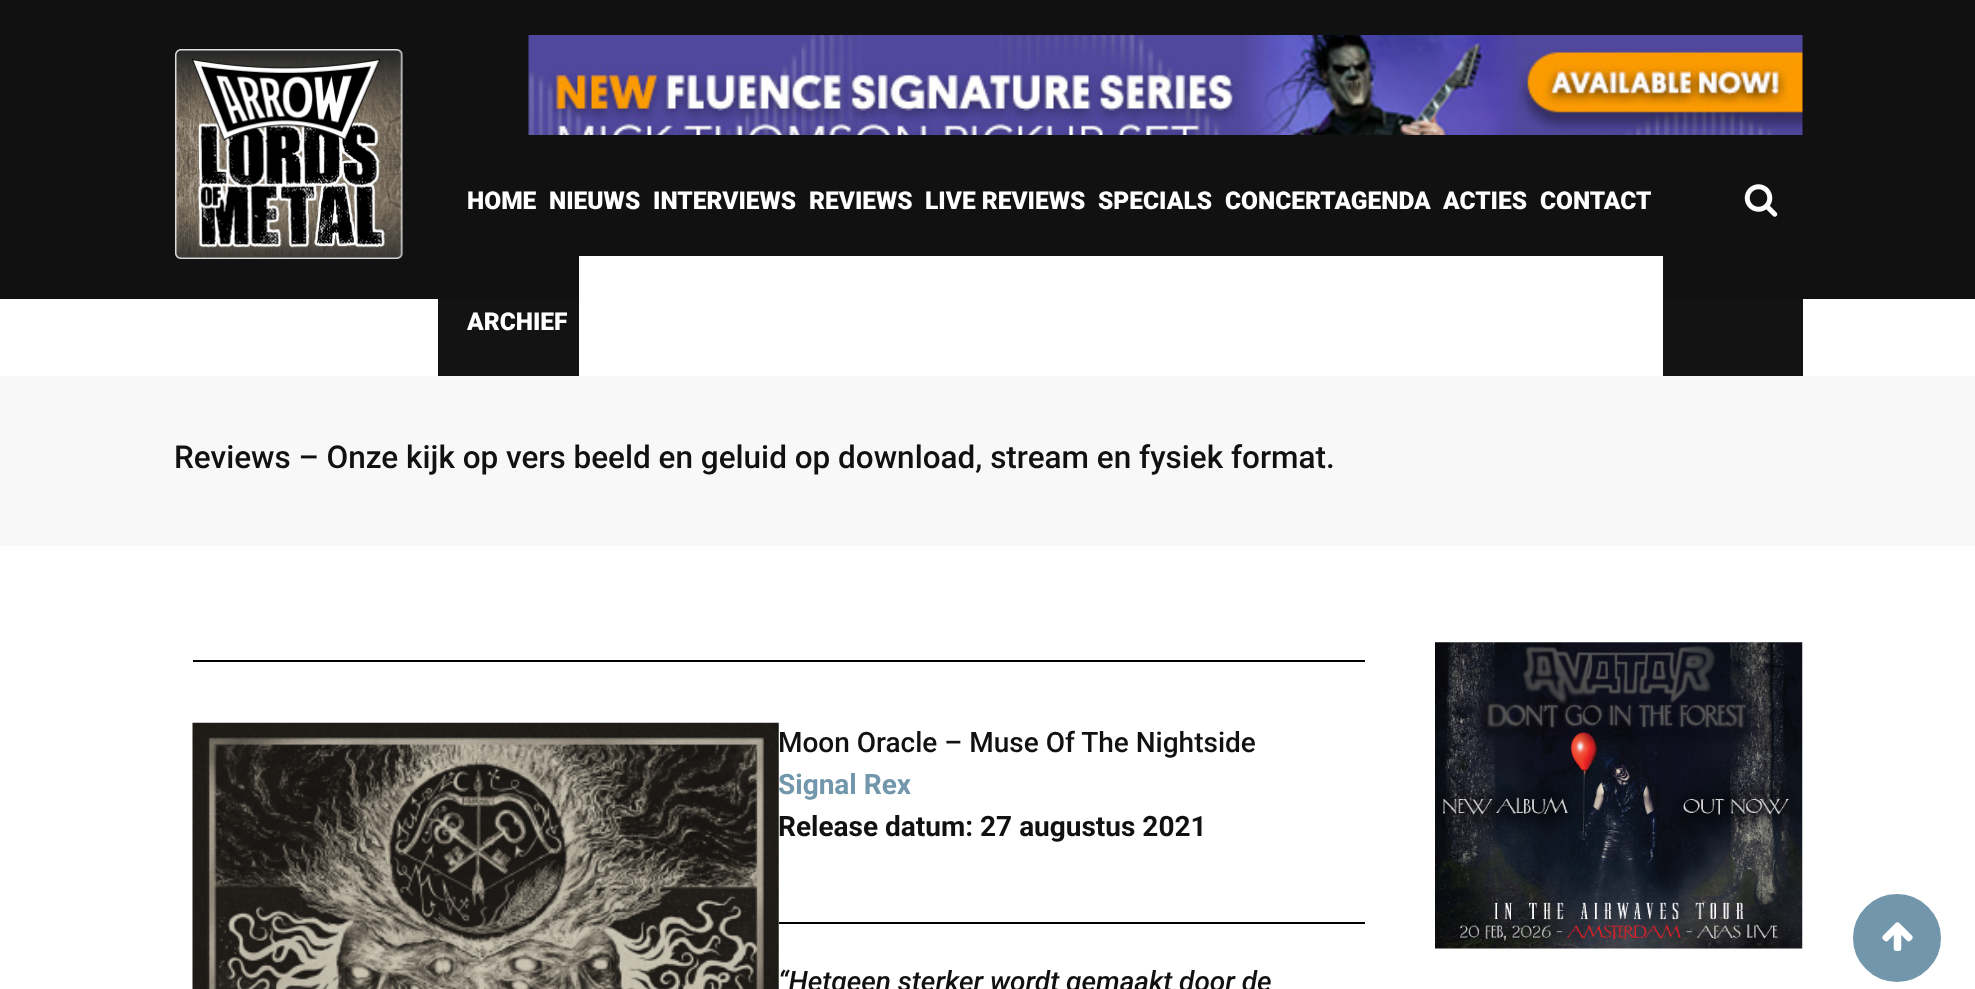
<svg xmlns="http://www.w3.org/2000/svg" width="1975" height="989">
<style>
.a{font:900 24.5px Roboto;fill:#fff}
.b{font:500 31.5px Roboto;fill:#111}
.c{font:500 28px Roboto;fill:#111}
.d{font:bold 28px Roboto;fill:#7296ab}
.e{font:bold 28px Roboto;fill:#111}
.f{font:italic 500 28px Roboto;fill:#111}
</style>
<rect width="100%" height="100%" fill="#fff"/>
<path fill="#111" d="M0 0h1975v299H0z"/>
<image href="1.png" x="175" y="49" width="228" height="210"/>
<image href="2.png" x="528" y="35" width="1275" height="100"/>
<path fill="#131313" d="M438 299h1365v77H438z"/>
<path fill="#fff" d="M579 256h1084v120H579z"/>
<image href="3.png" x="1744" y="184" width="34" height="33"/>
<path fill="#f8f8f8" d="M0 376h1975v170H0z"/>
<path fill="#000" d="M193 660h1172v2H193z"/>
<image href="4.png" x="192" y="722" width="587" height="267"/>
<path fill="#000" d="M779 922h586v2H779z"/>
<image href="5.png" x="1435" y="642" width="368" height="307"/>
<circle fill="#7296ab" stroke="#7296ab" stroke-width="4" cx="1897" cy="938" r="42"/>
<image href="6.png" x="1882" y="922" width="31" height="29"/>
<text class="a" x="467" y="209">HOME</text>
<text class="a" x="549" y="209">NIEUWS</text>
<text class="a" x="653" y="209">INTERVIEWS</text>
<text class="a" x="809" y="209">REVIEWS</text>
<text class="a" x="925" y="209">LIVE REVIEWS</text>
<text class="a" x="1098" y="209">SPECIALS</text>
<text class="a" x="1225" y="209">CONCERTAGENDA</text>
<text class="a" x="1443" y="209">ACTIES</text>
<text class="a" x="1540" y="209">CONTACT</text>
<text class="a" x="467" y="330">ARCHIEF</text>
<text class="b" x="174" y="468">Reviews – Onze kijk op vers beeld en geluid op download, stream en fysiek format.</text>
<text class="c" x="778" y="752">Moon Oracle – Muse Of The Nightside</text>
<text class="d" x="778" y="794">Signal Rex</text>
<text class="e" x="778" y="836">Release datum: 27 augustus 2021</text>
<text class="f" x="778" y="991">“Hetgeen sterker wordt gemaakt door de</text>
</svg>
